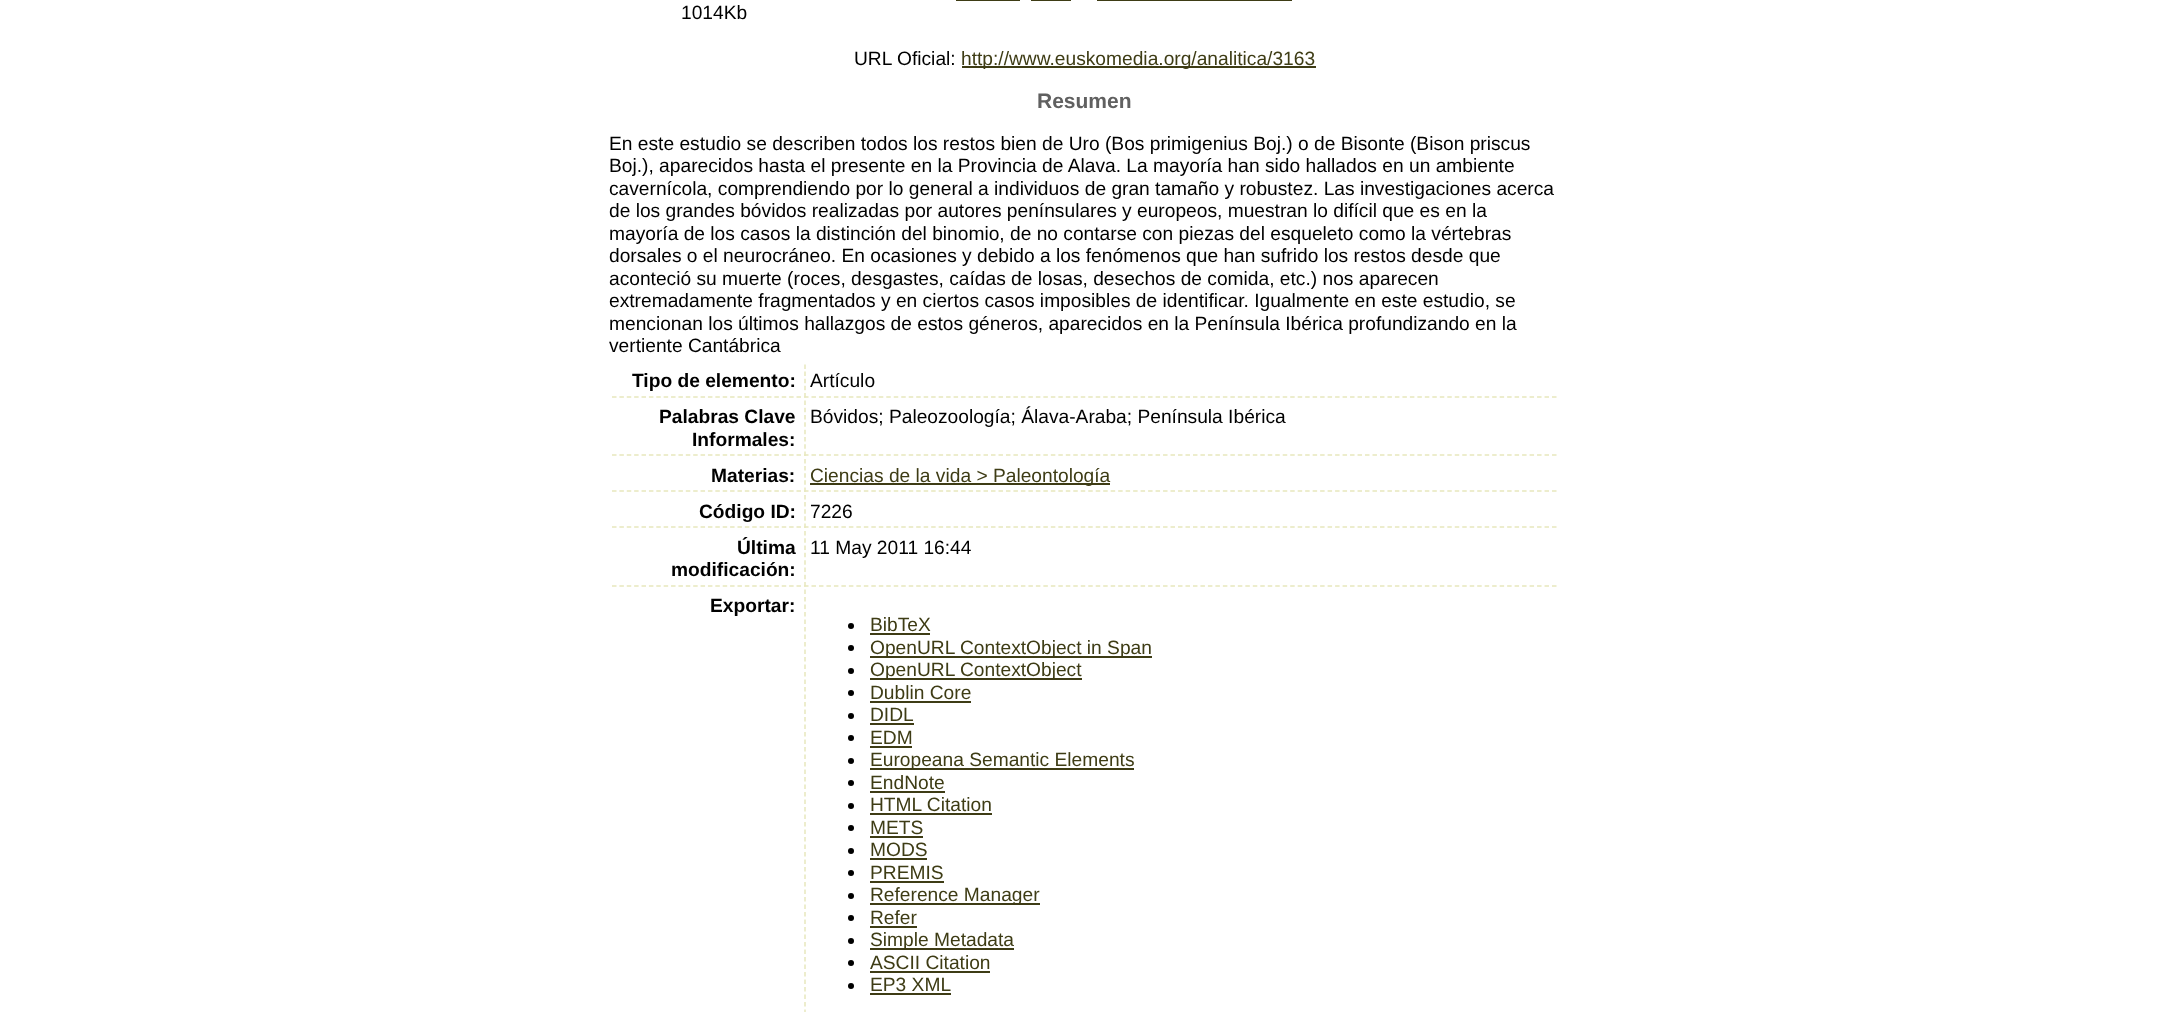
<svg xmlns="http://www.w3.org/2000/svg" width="2169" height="1012">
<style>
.a{font:19.2px Liberation Sans;fill:#000}
.b{font:19.2px Liberation Sans;fill:#3e3c15}
.c{font:bold 21px Liberation Sans;fill:#606060}
.d{font:bold 19.2px Liberation Sans;fill:#000}
</style>
<rect width="100%" height="100%" fill="#fff"/>
<path fill="#3e3c15" d="M956 0h64v1H956z"/>
<path fill="#3e3c15" d="M1031 0h40v1H1031z"/>
<path fill="#3e3c15" d="M1097 0h195v1H1097z"/>
<path fill="#3e3c15" d="M962 66h354v2H962z"/>
<path fill="none" stroke="#e7e8bd" stroke-width="1.5" stroke-dasharray="4.5 2.88" d="M612 397h189"/>
<path fill="none" stroke="#e7e8bd" stroke-width="1.5" stroke-dasharray="4.5 2.98" d="M804 397h753"/>
<path fill="none" stroke="#e7e8bd" stroke-width="1.5" stroke-dasharray="4.5 2.62" d="M805 364.5v33"/>
<path fill="none" stroke="#e7e8bd" stroke-width="1.5" stroke-dasharray="4.5 2.88" d="M612 455h189"/>
<path fill="none" stroke="#e7e8bd" stroke-width="1.5" stroke-dasharray="4.5 2.98" d="M804 455h753"/>
<path fill="none" stroke="#e7e8bd" stroke-width="1.5" stroke-dasharray="4.5 2.79" d="M805 400.5v55.5"/>
<path fill="none" stroke="#e7e8bd" stroke-width="1.5" stroke-dasharray="4.5 2.88" d="M612 491h189"/>
<path fill="none" stroke="#e7e8bd" stroke-width="1.5" stroke-dasharray="4.5 2.98" d="M804 491h753"/>
<path fill="none" stroke="#e7e8bd" stroke-width="1.5" stroke-dasharray="4.5 2.62" d="M805 459v33"/>
<path fill="#3e3c15" d="M810 483h300v2H810z"/>
<path fill="none" stroke="#e7e8bd" stroke-width="1.5" stroke-dasharray="4.5 2.88" d="M612 527h189"/>
<path fill="none" stroke="#e7e8bd" stroke-width="1.5" stroke-dasharray="4.5 2.98" d="M804 527h753"/>
<path fill="none" stroke="#e7e8bd" stroke-width="1.5" stroke-dasharray="4.5 2.62" d="M805 495v33"/>
<path fill="none" stroke="#e7e8bd" stroke-width="1.5" stroke-dasharray="4.5 2.88" d="M612 586h189"/>
<path fill="none" stroke="#e7e8bd" stroke-width="1.5" stroke-dasharray="4.5 2.98" d="M804 586h753"/>
<path fill="none" stroke="#e7e8bd" stroke-width="1.5" stroke-dasharray="4.5 2.79" d="M805 531v55.5"/>
<path fill="none" stroke="#e7e8bd" stroke-width="1.5" stroke-dasharray="4.5 3" d="M805 589.5v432"/>
<circle fill="#000" cx="851" cy="626" r="3"/>
<path fill="#3e3c15" d="M870 633h60v2H870z"/>
<circle fill="#000" cx="851" cy="648" r="3"/>
<path fill="#3e3c15" d="M870 656h282v2H870z"/>
<circle fill="#000" cx="851" cy="671" r="3"/>
<path fill="#3e3c15" d="M870 678h212v2H870z"/>
<circle fill="#000" cx="851" cy="693" r="3"/>
<path fill="#3e3c15" d="M870 701h101v2H870z"/>
<circle fill="#000" cx="851" cy="716" r="3"/>
<path fill="#3e3c15" d="M870 723h44v2H870z"/>
<circle fill="#000" cx="851" cy="738" r="3"/>
<path fill="#3e3c15" d="M870 746h42v2H870z"/>
<circle fill="#000" cx="851" cy="761" r="3"/>
<path fill="#3e3c15" d="M870 768h264v2H870z"/>
<circle fill="#000" cx="851" cy="783" r="3"/>
<path fill="#3e3c15" d="M870 791h75v2H870z"/>
<circle fill="#000" cx="851" cy="806" r="3"/>
<path fill="#3e3c15" d="M870 813h122v2H870z"/>
<circle fill="#000" cx="851" cy="828" r="3"/>
<path fill="#3e3c15" d="M870 836h53v2H870z"/>
<circle fill="#000" cx="851" cy="851" r="3"/>
<path fill="#3e3c15" d="M870 858h57v2H870z"/>
<circle fill="#000" cx="851" cy="873" r="3"/>
<path fill="#3e3c15" d="M870 881h74v2H870z"/>
<circle fill="#000" cx="851" cy="896" r="3"/>
<path fill="#3e3c15" d="M870 903h170v2H870z"/>
<circle fill="#000" cx="851" cy="918" r="3"/>
<path fill="#3e3c15" d="M870 926h47v2H870z"/>
<circle fill="#000" cx="851" cy="941" r="3"/>
<path fill="#3e3c15" d="M870 948h144v2H870z"/>
<circle fill="#000" cx="851" cy="963" r="3"/>
<path fill="#3e3c15" d="M870 971h120v2H870z"/>
<circle fill="#000" cx="851" cy="986" r="3"/>
<path fill="#3e3c15" d="M870 993h81v2H870z"/>
<text class="a" x="681" y="19">1014Kb</text>
<text class="a" x="854" y="65">URL Oficial:</text>
<text class="b" x="961" y="65">http://www.euskomedia.org/analitica/3163</text>
<text class="c" x="1037" y="108">Resumen</text>
<text class="a" x="609" y="150">En este estudio se describen todos los restos bien de Uro (Bos primigenius Boj.) o de Bisonte (Bison priscus</text>
<text class="a" x="609" y="172">Boj.), aparecidos hasta el presente en la Provincia de Alava. La mayoría han sido hallados en un ambiente</text>
<text class="a" x="609" y="195">cavernícola, comprendiendo por lo general a individuos de gran tamaño y robustez. Las investigaciones acerca</text>
<text class="a" x="609" y="217">de los grandes bóvidos realizadas por autores penínsulares y europeos, muestran lo difícil que es en la</text>
<text class="a" x="609" y="240">mayoría de los casos la distinción del binomio, de no contarse con piezas del esqueleto como la vértebras</text>
<text class="a" x="609" y="262">dorsales o el neurocráneo. En ocasiones y debido a los fenómenos que han sufrido los restos desde que</text>
<text class="a" x="609" y="285">aconteció su muerte (roces, desgastes, caídas de losas, desechos de comida, etc.) nos aparecen</text>
<text class="a" x="609" y="307">extremadamente fragmentados y en ciertos casos imposibles de identificar. Igualmente en este estudio, se</text>
<text class="a" x="609" y="330">mencionan los últimos hallazgos de estos géneros, aparecidos en la Península Ibérica profundizando en la</text>
<text class="a" x="609" y="352">vertiente Cantábrica</text>
<text class="d" x="632" y="387">Tipo de elemento:</text>
<text class="a" x="810" y="387">Artículo</text>
<text class="d" x="659" y="423">Palabras Clave</text>
<text class="d" x="692" y="446">Informales:</text>
<text class="a" x="810" y="423">Bóvidos; Paleozoología; Álava-Araba; Península Ibérica</text>
<text class="d" x="711" y="482">Materias:</text>
<text class="b" x="810" y="482">Ciencias de la vida &gt; Paleontología</text>
<text class="d" x="699" y="518">Código ID:</text>
<text class="a" x="810" y="518">7226</text>
<text class="d" x="737" y="554">Última</text>
<text class="d" x="671" y="576">modificación:</text>
<text class="a" x="810" y="554">11 May 2011 16:44</text>
<text class="d" x="710" y="612">Exportar:</text>
<text class="b" x="870" y="631">BibTeX</text>
<text class="b" x="870" y="654">OpenURL ContextObject in Span</text>
<text class="b" x="870" y="676">OpenURL ContextObject</text>
<text class="b" x="870" y="699">Dublin Core</text>
<text class="b" x="870" y="721">DIDL</text>
<text class="b" x="870" y="744">EDM</text>
<text class="b" x="870" y="766">Europeana Semantic Elements</text>
<text class="b" x="870" y="789">EndNote</text>
<text class="b" x="870" y="811">HTML Citation</text>
<text class="b" x="870" y="834">METS</text>
<text class="b" x="870" y="856">MODS</text>
<text class="b" x="870" y="879">PREMIS</text>
<text class="b" x="870" y="901">Reference Manager</text>
<text class="b" x="870" y="924">Refer</text>
<text class="b" x="870" y="946">Simple Metadata</text>
<text class="b" x="870" y="969">ASCII Citation</text>
<text class="b" x="870" y="991">EP3 XML</text>
</svg>
